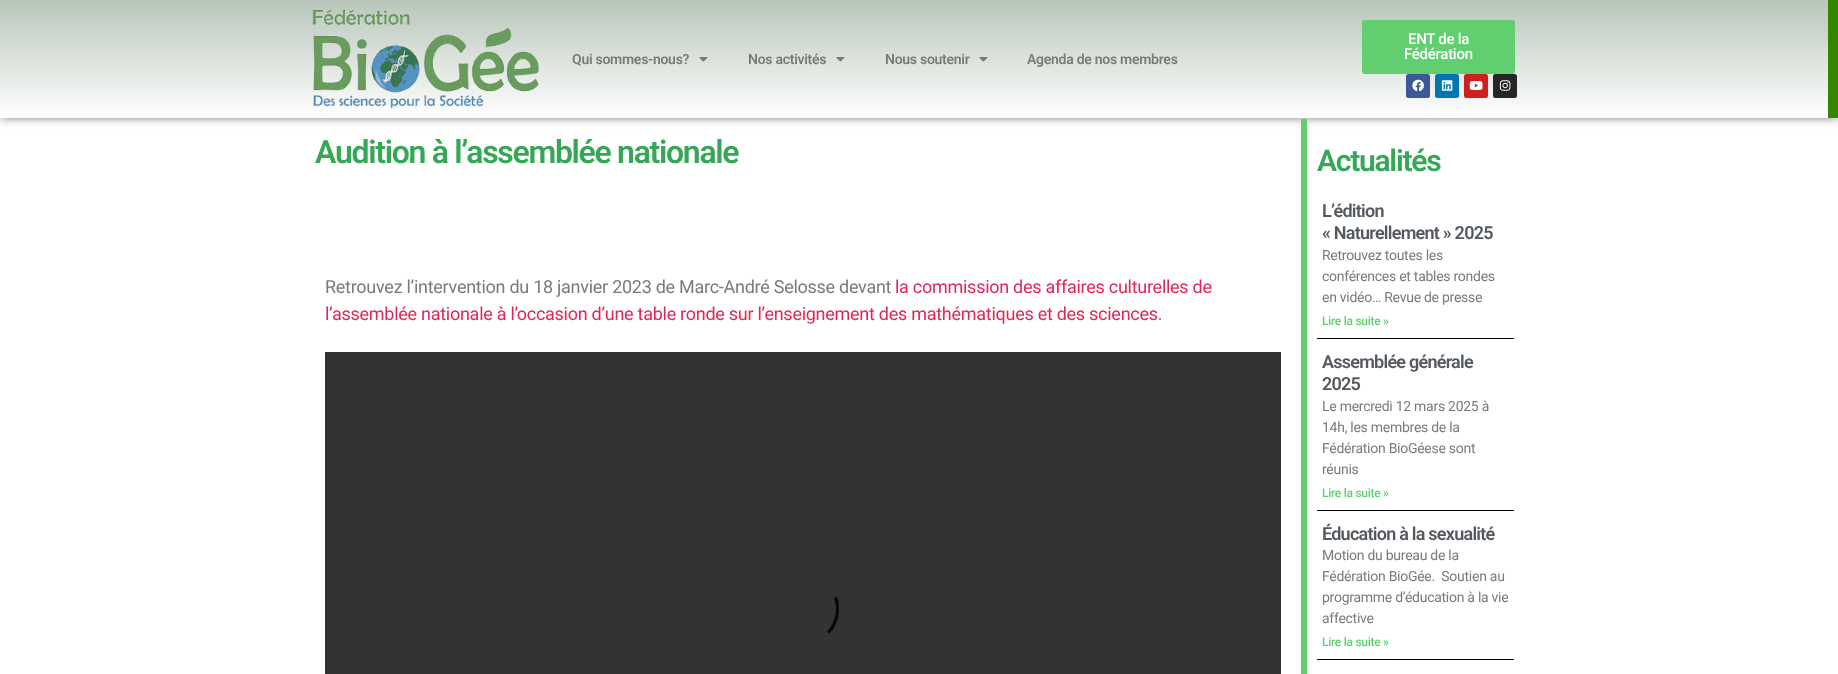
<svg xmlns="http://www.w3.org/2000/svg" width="1838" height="674">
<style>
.a{font:600 14px Roboto;letter-spacing:-0.27px;fill:#7a7a7a}
.b{font:500 15px Roboto;letter-spacing:-0.27px;fill:#fff}
.c{font:600 32px Roboto;letter-spacing:-1.3px;fill:#35a756}
.d{font:18px Roboto;letter-spacing:-0.27px;fill:#7a7a7a}
.e{font:18px Roboto;letter-spacing:-0.27px;fill:#e22658}
.f{font:600 30px Roboto;letter-spacing:-1.25px;fill:#35a756}
.g{font:600 18px Roboto;letter-spacing:-0.75px;fill:#54595f}
.h{font:14px Roboto;letter-spacing:-0.27px;fill:#7a7a7a}
.i{font:500 12px Roboto;letter-spacing:-0.27px;fill:#61ce70}
</style>
<defs>
<linearGradient id="g1" gradientUnits="userSpaceOnUse" x1="914" y1="0" x2="914" y2="118"><stop offset="0" stop-color="#b8c6ba"/><stop offset="1" stop-color="#fff"/></linearGradient>
</defs>
<rect width="100%" height="100%" fill="#fff"/>
<path fill="#00000080" filter="blur(5px)" d="M0 0h1838v118H0z"/>
<path fill="url(#g1)" d="M0 0h1828v118H0z"/>
<path fill="#348601" d="M1828 0h10v118H1828z"/>
<image href="1.png" x="312" y="9" width="227" height="100"/>
<image href="2.png" x="699" y="57" width="9" height="5"/>
<image href="2.png" x="836" y="57" width="9" height="5"/>
<image href="2.png" x="979" y="57" width="9" height="5"/>
<rect fill="#61ce70" x="1362" y="20" width="153" height="54" rx="3"/>
<rect fill="#3b5998" x="1406" y="74" width="24" height="24" rx="2.5"/>
<image href="3.png" x="1412" y="79" width="12" height="13"/>
<rect fill="#0077b5" x="1435" y="74" width="24" height="24" rx="2.5"/>
<image href="4.png" x="1441" y="80" width="12" height="11"/>
<rect fill="#cd201f" x="1464" y="74" width="24" height="24" rx="2.5"/>
<image href="5.png" x="1469" y="81" width="14" height="9"/>
<rect fill="#262626" x="1493" y="74" width="24" height="24" rx="2.5"/>
<image href="6.png" x="1499" y="80" width="12" height="11"/>
<path fill="#61ce70" d="M1301 119h6v555H1301z"/>
<image href="7.png" x="325" y="352" width="956" height="322"/>
<path fill="#000" d="M1317 338h197v1H1317z"/>
<path fill="#000" d="M1317 510h197v1H1317z"/>
<path fill="#000" d="M1317 659h197v1H1317z"/>
<text class="a" x="572" y="64">Qui sommes-nous?</text>
<text class="a" x="748" y="64">Nos activités</text>
<text class="a" x="885" y="64">Nous soutenir</text>
<text class="a" x="1027" y="64">Agenda de nos membres</text>
<text class="b" x="1408" y="44">ENT de la</text>
<text class="b" x="1404" y="59">Fédération</text>
<text class="c" x="315" y="163">Audition à l’assemblée nationale</text>
<text class="d" x="325" y="293">Retrouvez l’intervention du 18 janvier 2023 de Marc-André Selosse devant</text>
<text class="e" x="895" y="293">la commission des affaires culturelles de</text>
<text class="e" x="325" y="320">l’assemblée nationale à l’occasion d’une table ronde sur l’enseignement des mathématiques et des sciences.</text>
<text class="f" x="1317" y="171">Actualités</text>
<text class="g" x="1322" y="217">L’édition</text>
<text class="g" x="1322" y="239">« Naturellement » 2025</text>
<text class="h" x="1322" y="260">Retrouvez toutes les</text>
<text class="h" x="1322" y="281">conférences et tables rondes</text>
<text class="h" x="1322" y="302">en vidéo… Revue de presse</text>
<text class="i" x="1322" y="325">Lire la suite »</text>
<text class="g" x="1322" y="368">Assemblée générale</text>
<text class="g" x="1322" y="390">2025</text>
<text class="h" x="1322" y="411">Le mercredi 12 mars 2025 à</text>
<text class="h" x="1322" y="432">14h, les membres de la</text>
<text class="h" x="1322" y="453">Fédération BioGéese sont</text>
<text class="h" x="1322" y="474">réunis</text>
<text class="i" x="1322" y="497">Lire la suite »</text>
<text class="g" x="1322" y="540">Éducation à la sexualité</text>
<text class="h" x="1322" y="560">Motion du bureau de la</text>
<text class="h" xml:space="preserve" x="1322" y="581">Fédération BioGée.  Soutien au</text>
<text class="h" x="1322" y="602">programme d’éducation à la vie</text>
<text class="h" x="1322" y="623">affective</text>
<text class="i" x="1322" y="646">Lire la suite »</text>
</svg>
